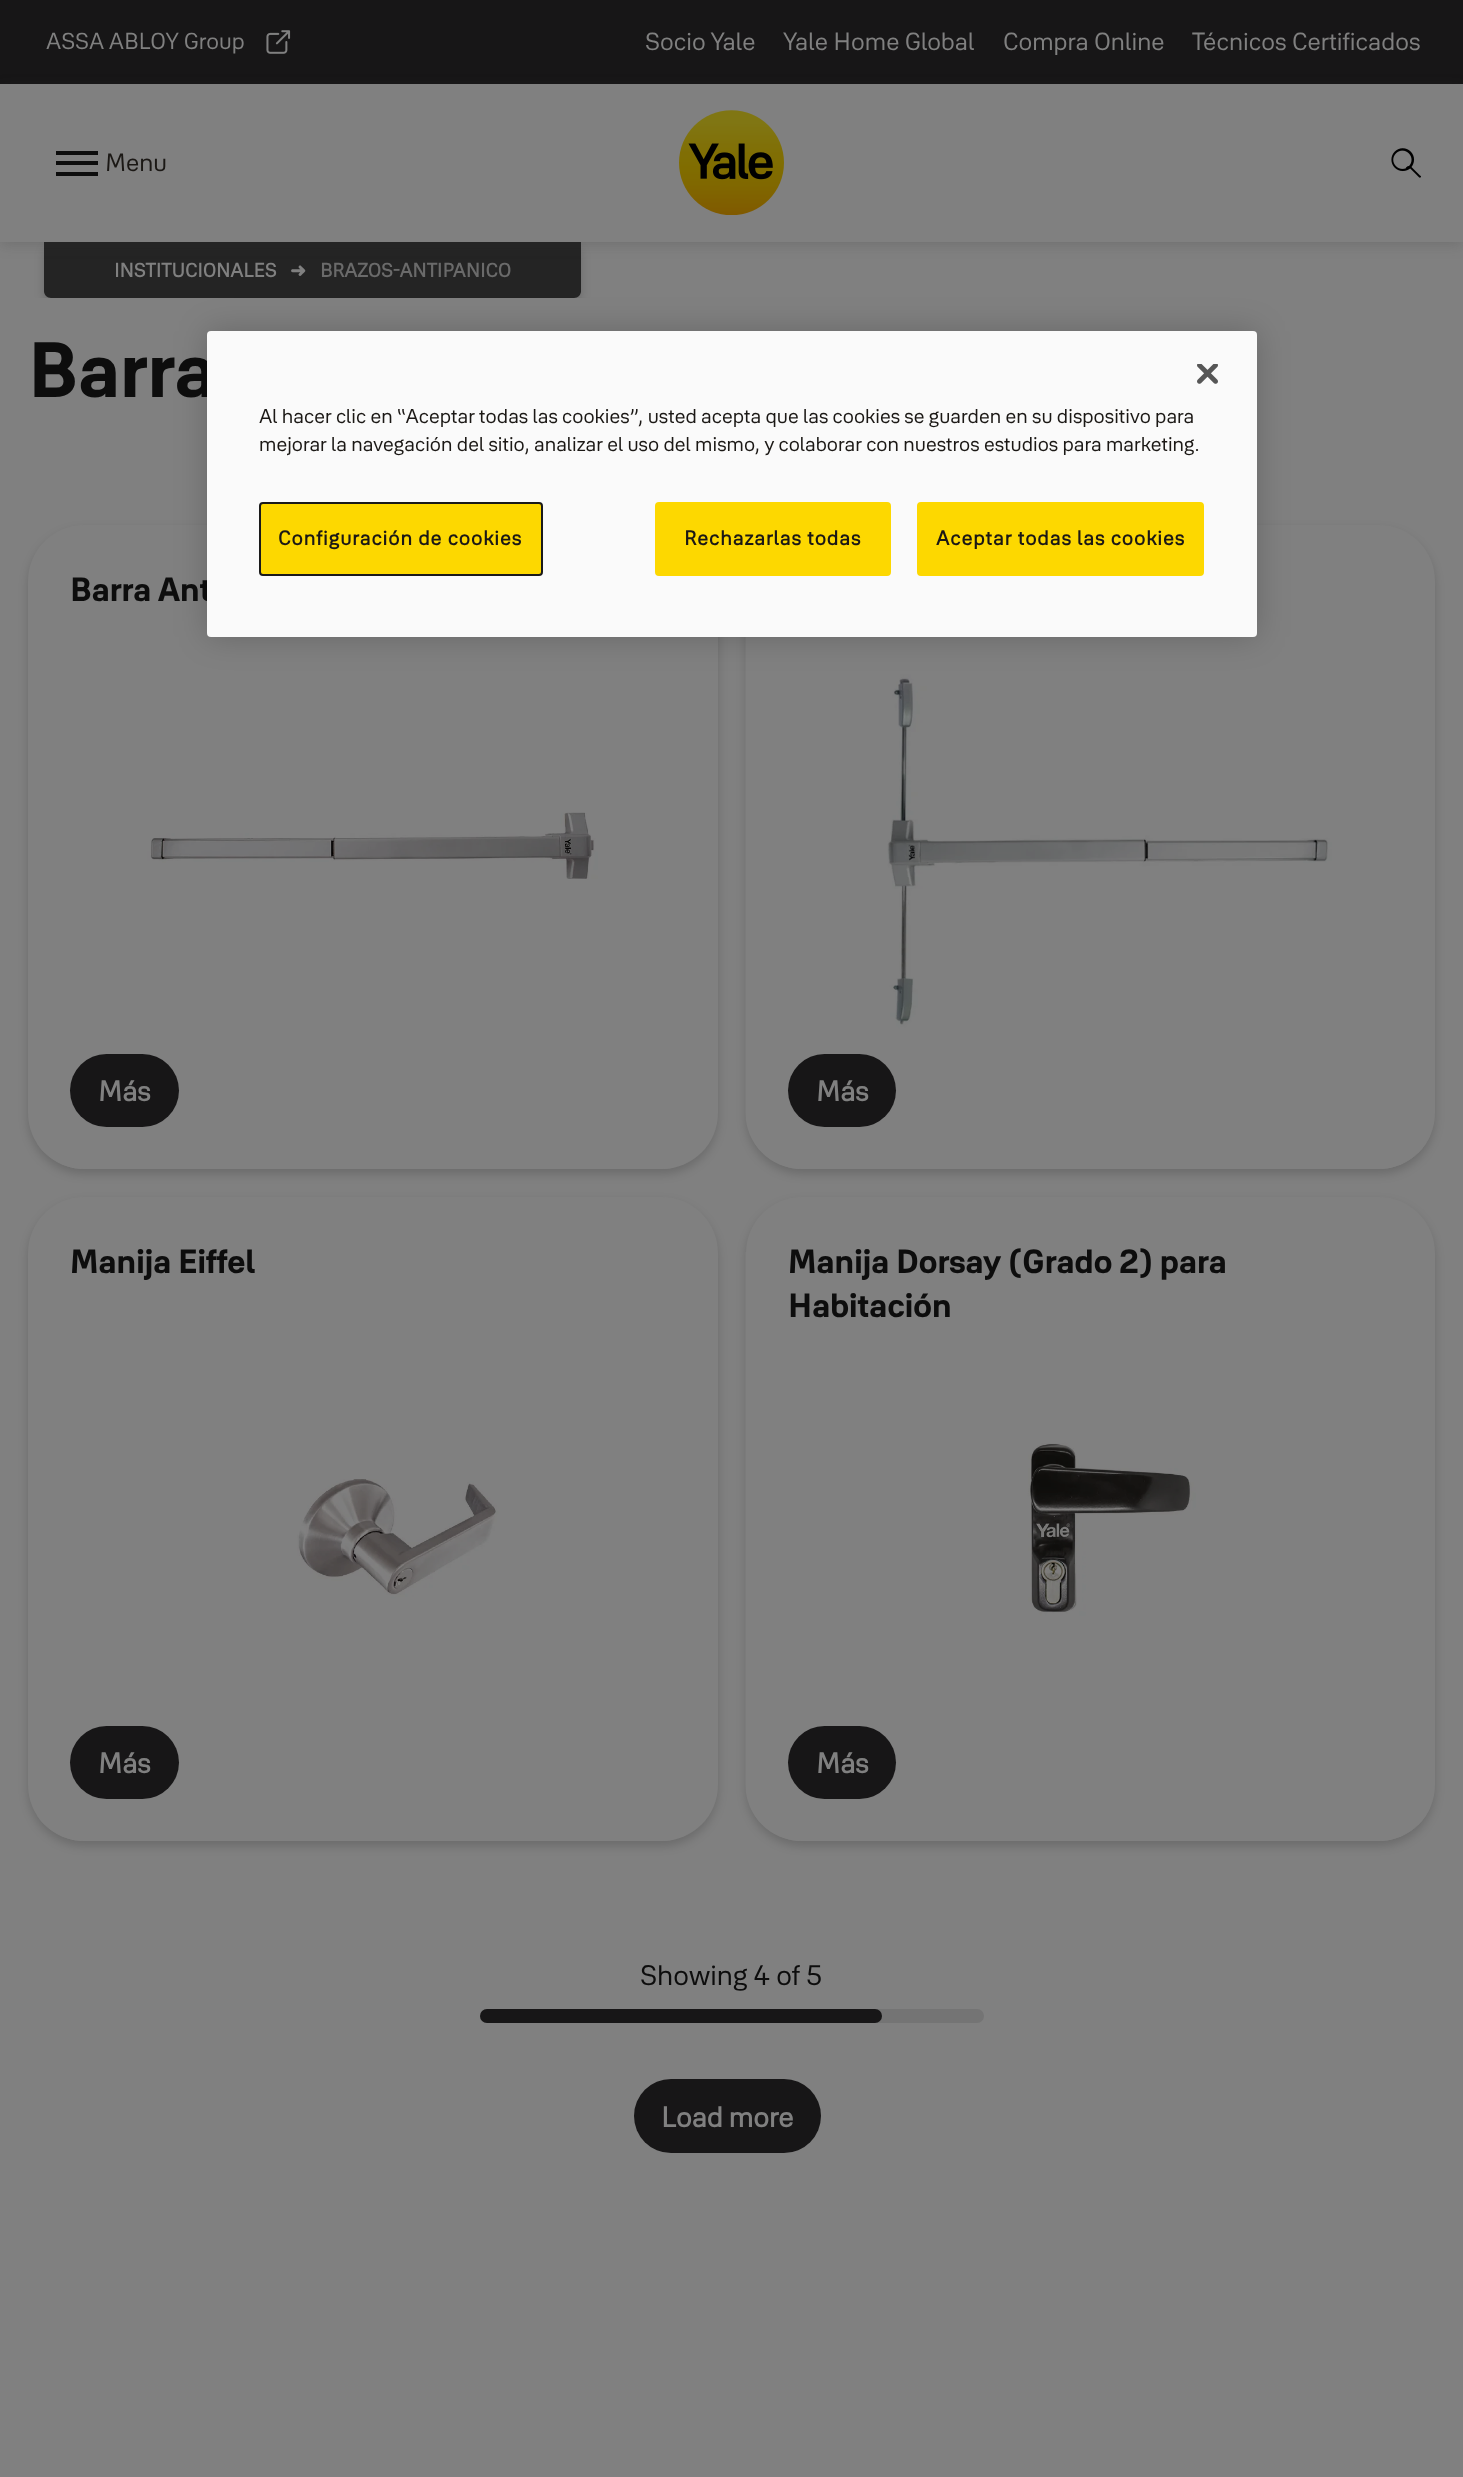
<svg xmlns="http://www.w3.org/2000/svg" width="1463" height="2477">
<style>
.a{font:22.75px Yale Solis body;fill:#808080}
.b{font:24.5px Yale Solis body;fill:#808080}
.c{font:24.5px Yale Solis body;fill:#1b1815}
.d{font:bold 19.25px Yale Solis body;fill:#808080}
.e{font:bold 19.25px DejaVu Sans;fill:#808080}
.f{font:bold 19.25px Yale Solis body;fill:#6a6a6a}
.g{font:bold 77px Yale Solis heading;fill:#0d0d0d}
.h{font:bold 33.25px Yale Solis heading;fill:#0d0d0d}
.i{font:bold 28px Yale Solis body;fill:#808080}
.j{font:28px Yale Solis body;fill:#0d0d0d}
.k{font:19.9px Yale Solis body;fill:#1b1815}
.l{font:bold 19.9px Yale Solis body;letter-spacing:1px;fill:#1b1815}
</style>
<defs>
<clipPath id="clip1"><path d="M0 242h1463v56H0z"/></clipPath>
<clipPath id="clip2"><path d="M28 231h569v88h-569zm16 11h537v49c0 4-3 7-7 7h-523c-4 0-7-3-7-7z" clip-rule="evenodd"/></clipPath>
</defs>
<rect width="100%" height="100%" fill="#808080"/>
<path fill="#171617" d="M0 0h1463v84H0z"/>
<image href="1.png" x="266" y="30" width="25" height="24"/>
<g clip-path="url(#clip1)">
<g clip-path="url(#clip2)">
<rect fill="#00000029" filter="blur(5px)" x="44" y="247" width="537" height="56" rx="7"/>
</g>
</g>
<path fill="#0d0d0dcc" d="M44 242h537v49c0 4-3 7-7 7h-523c-4 0-7-3-7-7z"/>
<path fill="#32323233" filter="blur(7px)" d="M0 88h1463v157H0z"/>
<path fill="#808080" d="M0 84h1463v158H0z"/>
<path fill="#0d0d0d" d="M56 151h42v4H56z"/>
<path fill="#0d0d0d" d="M56 161h42v4H56z"/>
<path fill="#0d0d0d" d="M56 172h42v4H56z"/>
<image href="2.png" x="679" y="110" width="105" height="105"/>
<image href="3.png" x="1391" y="148" width="30" height="30"/>
<rect fill="#00000029" filter="blur(5px)" x="28" y="530" width="690" height="644" rx="56"/>
<rect fill="#808080" x="28" y="525" width="690" height="644" rx="56"/>
<image href="4.png" x="37" y="812" width="634" height="357"/>
<rect fill="#171617" x="70" y="1054" width="109" height="73" rx="36.5"/>
<rect fill="#00000029" filter="blur(5px)" x="746" y="530" width="689" height="644" rx="56"/>
<rect fill="#808080" x="746" y="525" width="689" height="644" rx="56"/>
<image href="5.png" x="745" y="580" width="685" height="589"/>
<rect fill="#171617" x="788" y="1054" width="108" height="73" rx="36.5"/>
<rect fill="#00000029" filter="blur(5px)" x="28" y="1202" width="690" height="644" rx="56"/>
<rect fill="#808080" x="28" y="1197" width="690" height="644" rx="56"/>
<image href="6.png" x="37" y="1479" width="634" height="362"/>
<rect fill="#171617" x="70" y="1726" width="109" height="73" rx="36.5"/>
<rect fill="#00000029" filter="blur(5px)" x="746" y="1202" width="689" height="644" rx="56"/>
<rect fill="#808080" x="746" y="1197" width="689" height="644" rx="56"/>
<image href="7.png" x="745" y="1252" width="685" height="589"/>
<rect fill="#171617" x="788" y="1726" width="108" height="73" rx="36.5"/>
<rect fill="#747474" x="480" y="2009" width="504" height="14" rx="7"/>
<rect fill="#171617" x="480" y="2009" width="402" height="14" rx="7"/>
<rect fill="#171617" x="634" y="2079" width="187" height="74" rx="37"/>
<rect fill="#00000033" filter="blur(16px)" x="207" y="331" width="1050" height="306" rx="4"/>
<text class="a" x="46" y="49">ASSA ABLOY Group</text>
<text class="b" x="645" y="50">Socio Yale</text>
<text class="b" x="783" y="50">Yale Home Global</text>
<text class="b" x="1003" y="50">Compra Online</text>
<text class="b" x="1192" y="50">Técnicos Certificados</text>
<text class="c" x="105" y="171">Menu</text>
<text class="d" x="114" y="277">INSTITUCIONALES</text>
<text class="e" x="290" y="277">➜</text>
<text class="f" x="320" y="277">BRAZOS-ANTIPANICO</text>
<text class="g" x="28" y="397">Barra</text>
<text class="h" x="70" y="601">Barra Ant</text>
<text class="i" x="98" y="1101">Más</text>
<text class="i" x="816" y="1101">Más</text>
<text class="h" x="70" y="1273">Manija Eiffel</text>
<text class="i" x="98" y="1773">Más</text>
<text class="h" x="788" y="1273">Manija Dorsay (Grado 2) para</text>
<text class="h" x="788" y="1317">Habitación</text>
<text class="i" x="816" y="1773">Más</text>
<text class="j" x="640" y="1985">Showing 4 of 5</text>
<text class="i" x="661" y="2127">Load more</text>
<rect fill="#fafafa" x="207" y="331" width="1050" height="306" rx="4"/>
<image href="8.png" x="1197" y="364" width="21" height="20"/>
<text class="k" x="259" y="423">Al hacer clic en “Aceptar todas las cookies”, usted acepta que las cookies se guarden en su dispositivo para</text>
<text class="k" x="259" y="451">mejorar la navegación del sitio, analizar el uso del mismo, y colaborar con nuestros estudios para marketing.</text>
<rect fill="#fdd800" stroke="#1a1a1a" stroke-width="2" x="260" y="503" width="282" height="72" rx="3"/>
<text class="l" x="278" y="545">Configuración de cookies</text>
<rect fill="#fdd800" stroke="#fdd800" stroke-width="2" x="656" y="503" width="234" height="72" rx="3"/>
<text class="l" x="684" y="545">Rechazarlas todas</text>
<rect fill="#fdd800" stroke="#fdd800" stroke-width="2" x="918" y="503" width="285" height="72" rx="3"/>
<text class="l" x="936" y="545">Aceptar todas las cookies</text>
</svg>
